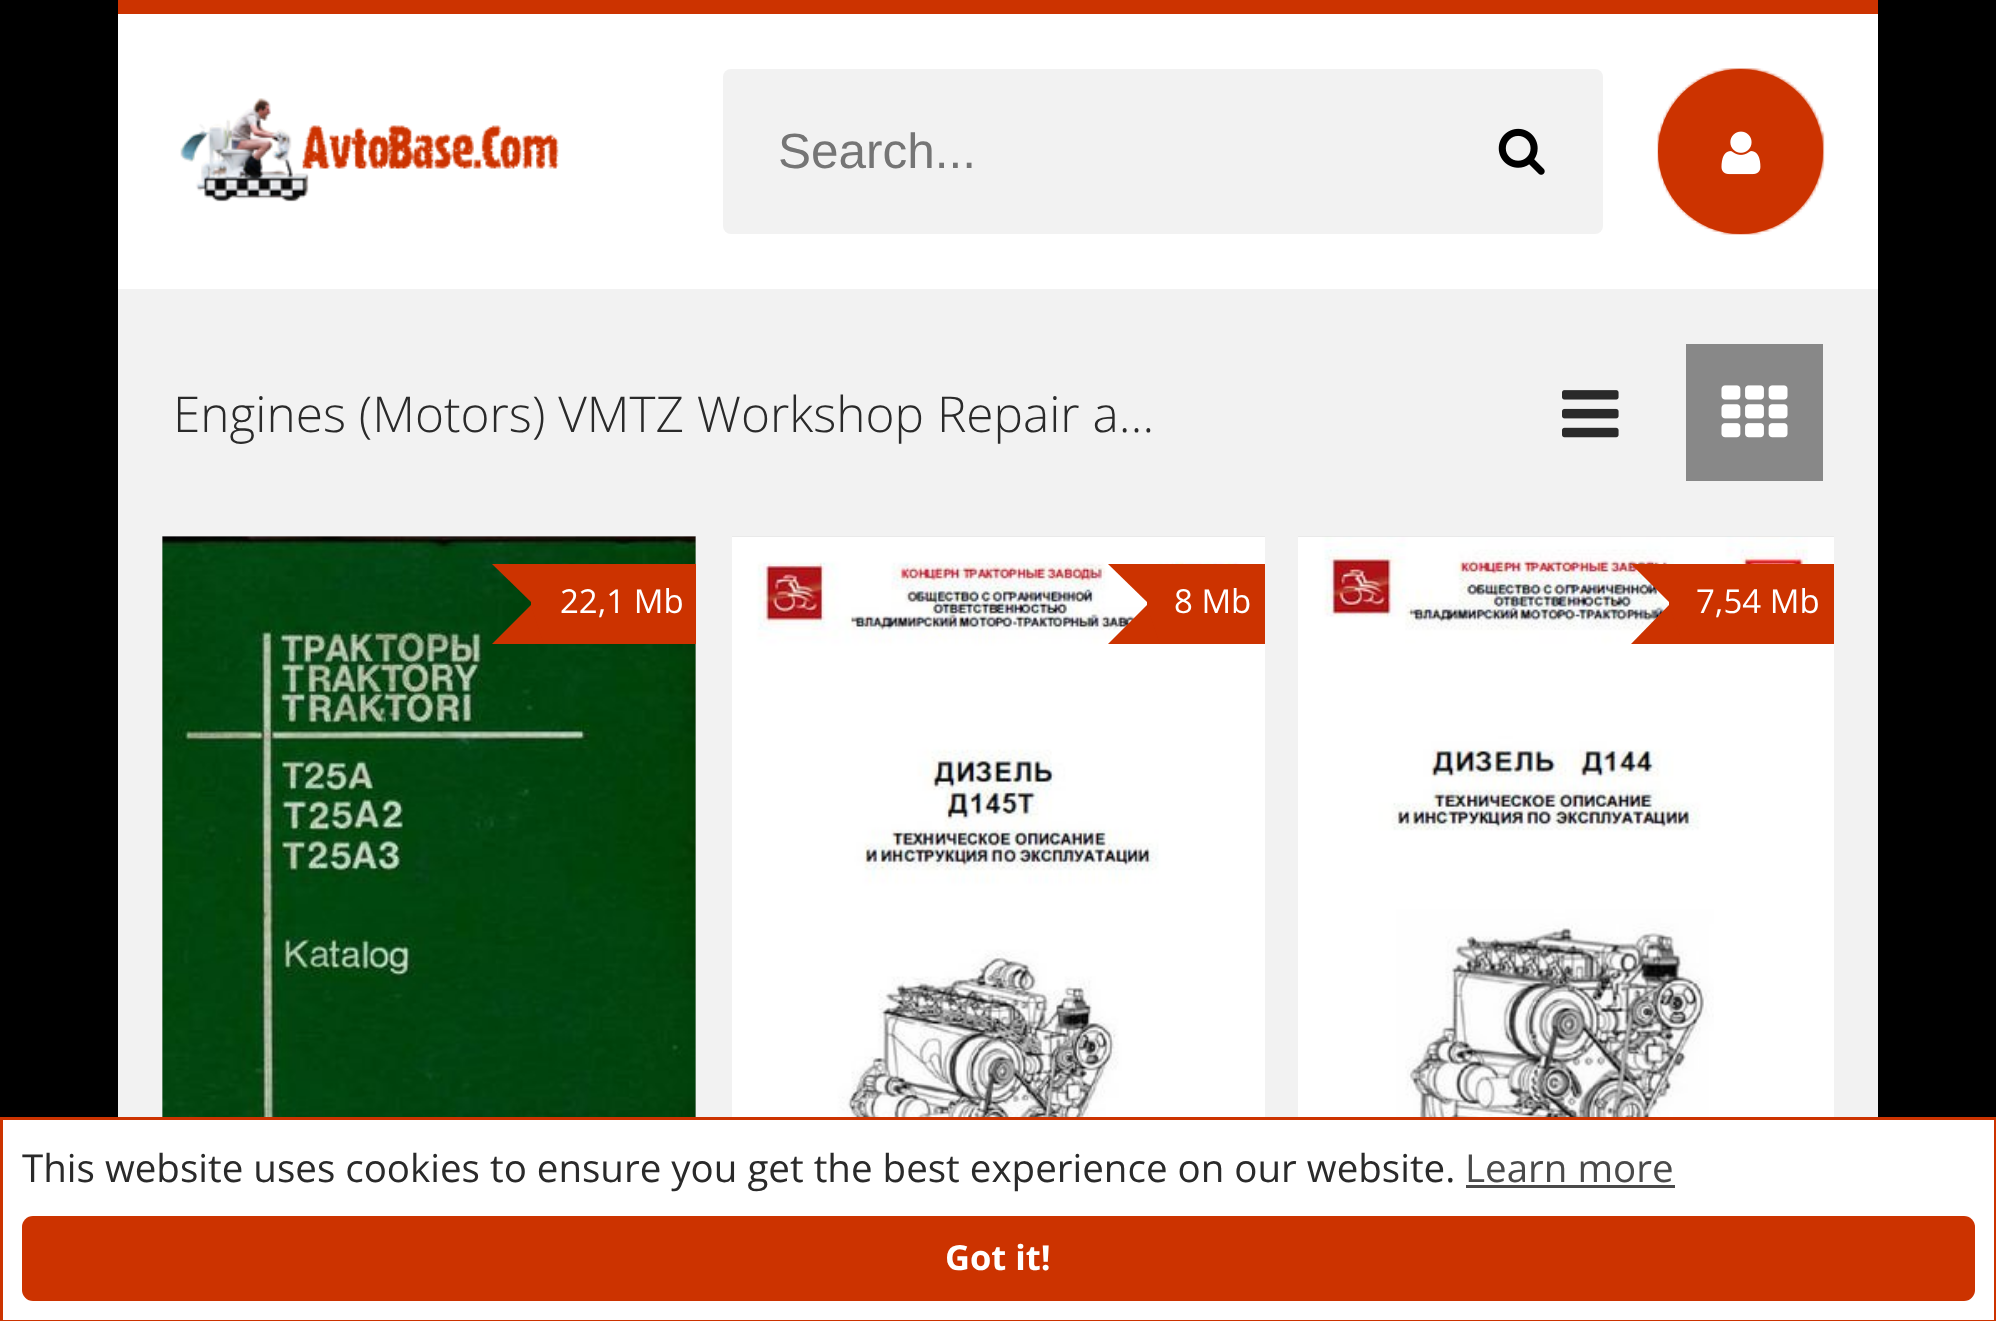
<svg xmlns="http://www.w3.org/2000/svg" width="1996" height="1321">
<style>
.a{font:49.5px Liberation Sans;fill:#757575}
.b{font:300 49.5px Open Sans;fill:#2a2a2a}
.c{font:33px Open Sans;fill:#fff}
.d{font:38.5px Open Sans;fill:#2a2a2a}
.e{font:38.5px Open Sans;fill:#4a4a4a}
.f{font:bold 34.5px Open Sans;fill:#fff}
</style>
<rect width="100%" height="100%" fill="#000"/>
<path fill="#f2f2f2" d="M118 289h1760v828H118z"/>
<path fill="#c30" d="M118 0h1760v14H118z"/>
<path fill="#fff" d="M118 14h1760v275H118z"/>
<image href="1.png" x="1657" y="68" width="168" height="167"/>
<image href="2.png" x="180" y="98" width="379" height="104"/>
<rect fill="#f2f2f2" x="723" y="69" width="880" height="165" rx="8"/>
<image href="3.png" x="1498" y="128" width="47" height="47"/>
<circle fill="#c30" cx="1740.5" cy="151.5" r="82.5"/>
<image href="4.png" x="1721" y="131" width="40" height="44"/>
<image href="5.png" x="1562" y="390" width="57" height="48"/>
<path fill="#888" d="M1686 344h137v137H1686z"/>
<image href="6.png" x="1721" y="385" width="67" height="53"/>
<path fill="#ccc" d="M162 536h534v581H162z"/>
<image href="7.png" x="162" y="536" width="534" height="581"/>
<path fill="#c30" d="M545 564h151v80H545z"/>
<path fill="#c30" d="M492 564h52l-13 38z"/>
<path fill="#c30" d="M531 564h14v80H531z"/>
<path fill="#c30" d="M544 644h-52l39-39z"/>
<path fill="#ccc" d="M732 536h533v1H732z"/>
<image href="8.png" x="732" y="536" width="533" height="581"/>
<path fill="#c30" d="M1161 564h104v80H1161z"/>
<path fill="#c30" d="M1108 564h52l-13 38z"/>
<path fill="#c30" d="M1147 564h14v80H1147z"/>
<path fill="#c30" d="M1160 644h-52l39-39z"/>
<path fill="#ccc" d="M1298 536h536v1H1298z"/>
<image href="9.png" x="1298" y="536" width="536" height="581"/>
<path fill="#c30" d="M1683 564h151v80H1683z"/>
<path fill="#c30" d="M1631 564h52l-14 38z"/>
<path fill="#c30" d="M1669 564h14v80H1669z"/>
<path fill="#c30" d="M1683 644h-52l38-39z"/>
<path fill="#fff" stroke="#c30" stroke-width="3" d="M1.5 1118.5h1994v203H1.5z"/>
<path fill="#4a4a4a" d="M1466 1185h209v3H1466z"/>
<rect fill="#c30" x="22" y="1216" width="1953" height="85" rx="11"/>
<text class="a" x="778" y="168">Search...</text>
<text class="b" x="173" y="432">Engines (Motors) VMTZ Workshop Repair a…</text>
<text class="c" x="560" y="613">22,1 Mb</text>
<text class="c" x="1174" y="613">8 Mb</text>
<text class="c" x="1696" y="613">7,54 Mb</text>
<text class="d" x="22" y="1182">This website uses cookies to ensure you get the best experience on our website.</text>
<text class="e" x="1465" y="1182">Learn more</text>
<text class="f" x="945" y="1270">Got it!</text>
</svg>
